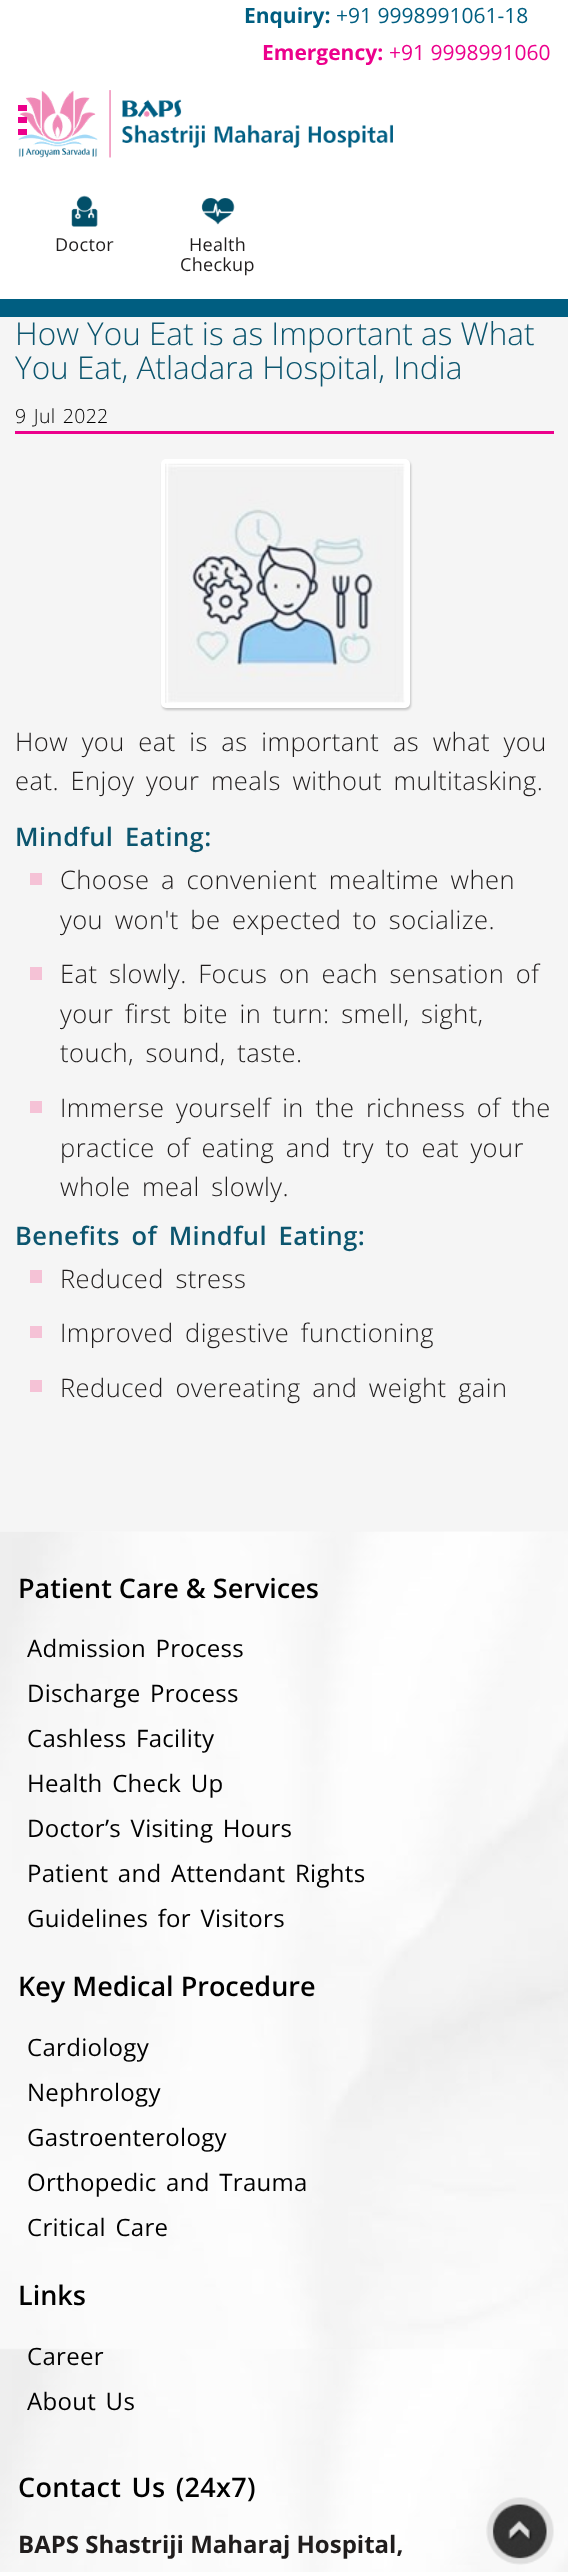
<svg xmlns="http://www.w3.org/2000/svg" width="568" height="2572">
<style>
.a{font:bold 21px Open Sans;fill:#005e81}
.b{font:21px Open Sans;fill:#005e81}
.c{font:bold 21px Open Sans;fill:#ec008c}
.d{font:21px Open Sans;fill:#ec008c}
.e{font:18px Open Sans;letter-spacing:0.3px;fill:#201d1d}
.f{font:300 31.5px Open Sans;fill:#0c556e}
.g{font:300 19.5px Open Sans;letter-spacing:0.3px;fill:#000}
.h{font:300 25.5px Open Sans;letter-spacing:0.45px;fill:#201d1d}
.i{font:600 25.5px Open Sans;letter-spacing:0.45px;fill:#0c556e}
.j{font:600 27px Open Sans;fill:#000}
.k{font:24px Open Sans;letter-spacing:0.3px;fill:#000}
.l{font:600 27px Open Sans;letter-spacing:0.3px;fill:#000}
.m{font:bold 24px Open Sans;fill:#201d1d}
</style>
<rect width="100%" height="100%" fill="#fff"/>
<image href="1.png" x="18" y="90" width="375" height="68"/>
<path fill="#ec008c" d="M18 105h9v6H18z"/>
<path fill="#ec008c" d="M18 117h9v6H18z"/>
<path fill="#ec008c" d="M18 129h9v6H18z"/>
<image href="2.png" x="71" y="195" width="27" height="32"/>
<image href="3.png" x="201" y="198" width="34" height="27"/>
<path fill="#005e81" d="M0 299h568v18H0z"/>
<path fill="#f5f5f5" d="M0 317h568v1215H0z"/>
<path fill="#ec008c" d="M15 431h539v3H15z"/>
<rect fill="#00000033" filter="blur(1px)" x="162" y="461" width="249" height="249" rx="5"/>
<rect fill="#fff" x="161" y="459" width="249" height="249" rx="5"/>
<image href="4.png" x="165" y="463" width="240" height="240"/>
<path fill="#f5c2d6" d="M30 873h12v12H30z"/>
<path fill="#f5c2d6" d="M30 967h12v13H30z"/>
<path fill="#f5c2d6" d="M30 1101h12v12H30z"/>
<path fill="#f5c2d6" d="M30 1270h12v13H30z"/>
<path fill="#f5c2d6" d="M30 1326h12v12H30z"/>
<path fill="#f5c2d6" d="M30 1380h12v12H30z"/>
<image href="5.png" x="0" y="1531" width="568" height="1041"/>
<image href="6.png" x="486" y="2497" width="68" height="68"/>
<text class="a" x="244" y="23">Enquiry:</text>
<text class="b" x="336" y="23">+91 9998991061-18</text>
<text class="c" x="262" y="60">Emergency:</text>
<text class="d" x="389" y="60">+91 9998991060</text>
<text class="e" x="55" y="251">Doctor</text>
<text class="e" x="189" y="251">Health</text>
<text class="e" x="180" y="271">Checkup</text>
<text class="f" x="15" y="345">How You Eat is as Important as What</text>
<text class="f" x="15" y="379">You Eat, Atladara Hospital, India</text>
<text class="g" x="15" y="423" word-spacing="2">9 Jul 2022</text>
<text class="h" x="15" y="751" word-spacing="6.5">How you eat is as important as what you</text>
<text class="h" x="15" y="790" word-spacing="4.5">eat. Enjoy your meals without multitasking.</text>
<text class="i" x="15" y="846" word-spacing="4.5">Mindful Eating:</text>
<text class="h" x="60" y="889" word-spacing="4.5">Choose a convenient mealtime when</text>
<text class="h" x="60" y="929" word-spacing="4.5">you won't be expected to socialize.</text>
<text class="h" x="60" y="983" word-spacing="4.5">Eat slowly. Focus on each sensation of</text>
<text class="h" x="60" y="1023" word-spacing="4.5">your first bite in turn: smell, sight,</text>
<text class="h" x="60" y="1062" word-spacing="4.5">touch, sound, taste.</text>
<text class="h" x="60" y="1117" word-spacing="4.5">Immerse yourself in the richness of the</text>
<text class="h" x="60" y="1157" word-spacing="4.5">practice of eating and try to eat your</text>
<text class="h" x="60" y="1196" word-spacing="4.5">whole meal slowly.</text>
<text class="i" x="15" y="1245" word-spacing="4.5">Benefits of Mindful Eating:</text>
<text class="h" x="60" y="1288" word-spacing="4.5">Reduced stress</text>
<text class="h" x="60" y="1342" word-spacing="4.5">Improved digestive functioning</text>
<text class="h" x="60" y="1397" word-spacing="4.5">Reduced overeating and weight gain</text>
<text class="j" x="18" y="1598">Patient Care &amp; Services</text>
<text class="k" x="27" y="1657" word-spacing="3">Admission Process</text>
<text class="k" x="27" y="1702" word-spacing="3">Discharge Process</text>
<text class="k" x="27" y="1747" word-spacing="3">Cashless Facility</text>
<text class="k" x="27" y="1792" word-spacing="3">Health Check Up</text>
<text class="k" x="27" y="1837" word-spacing="3">Doctor’s Visiting Hours</text>
<text class="k" x="27" y="1882" word-spacing="3">Patient and Attendant Rights</text>
<text class="k" x="27" y="1927" word-spacing="3">Guidelines for Visitors</text>
<text class="j" x="18" y="1996">Key Medical Procedure</text>
<text class="k" x="27" y="2056">Cardiology</text>
<text class="k" x="27" y="2101">Nephrology</text>
<text class="k" x="27" y="2146">Gastroenterology</text>
<text class="k" x="27" y="2191" word-spacing="3">Orthopedic and Trauma</text>
<text class="k" x="27" y="2236" word-spacing="3">Critical Care</text>
<text class="j" x="18" y="2305">Links</text>
<text class="k" x="27" y="2365">Career</text>
<text class="k" x="27" y="2410" word-spacing="3">About Us</text>
<text class="l" x="18" y="2497" word-spacing="3">Contact Us (24x7)</text>
<text class="m" x="18" y="2553">BAPS Shastriji Maharaj Hospital,</text>
</svg>
